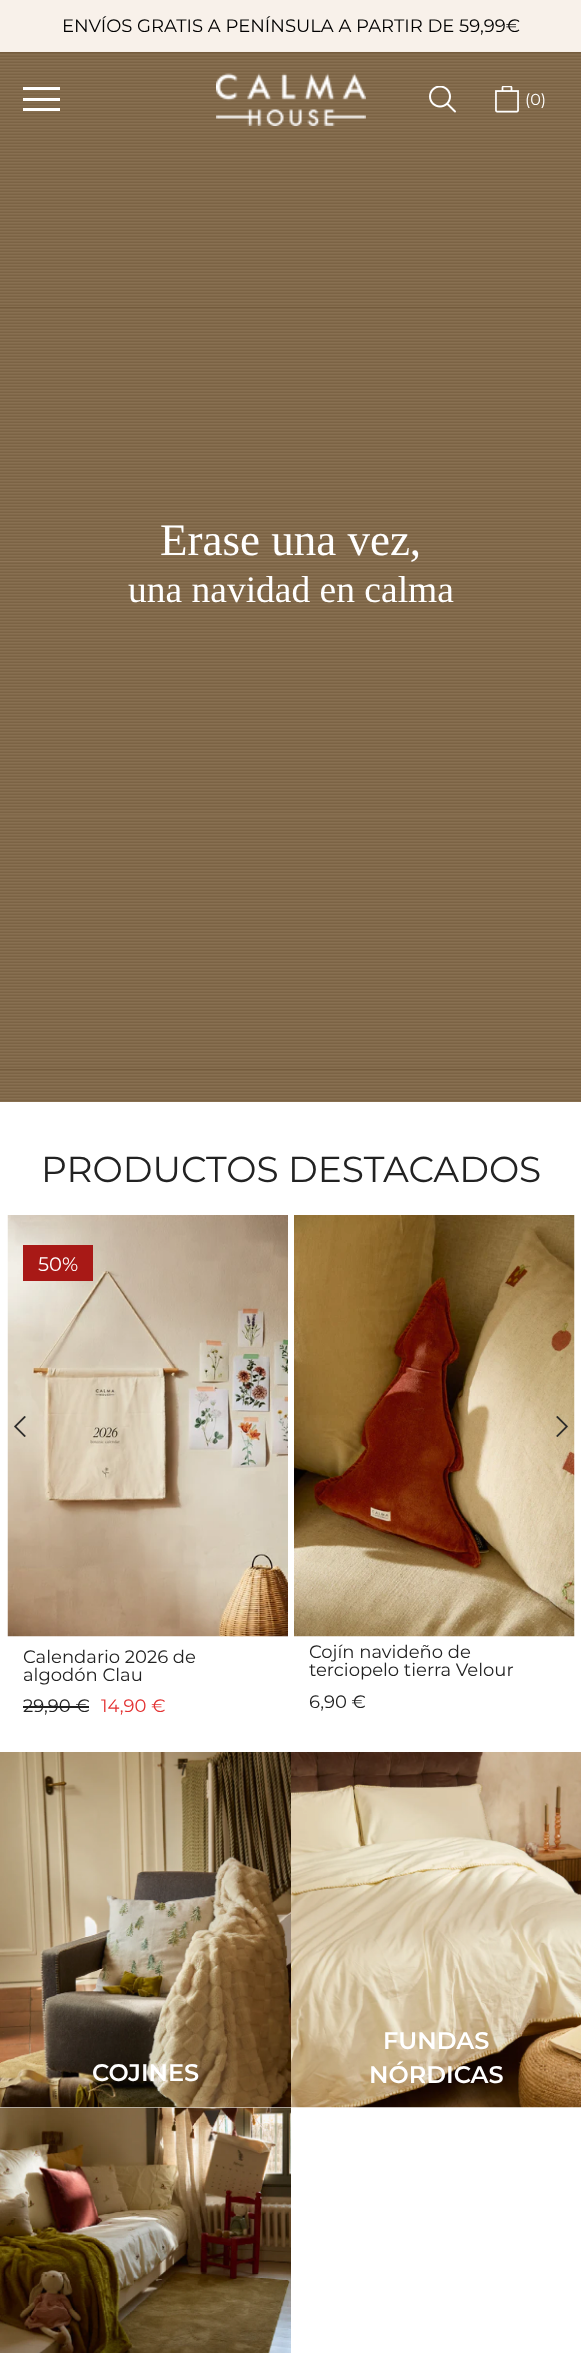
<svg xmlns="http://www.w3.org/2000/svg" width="581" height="2353">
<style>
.a{font:18px Montserrat;fill:#000}
.b{font:16px Montserrat;fill:#fff}
.c{font:45px Liberation Serif;fill:#fff}
.d{font:37.5px Liberation Serif;fill:#fff}
.e{font:36px Montserrat;fill:#222}
.f{font:19.5px Montserrat;fill:#fff}
.g{font:18px Montserrat;fill:#222}
.h{font:18px Montserrat;fill:#e33131}
.i{font:600 24px Montserrat;fill:#fff}
</style>
<rect width="100%" height="100%" fill="#fff"/>
<path fill="#f8f1ea" d="M0 0h581v52H0z"/>
<image href="4.png" x="0" y="52" width="581" height="1050"/>
<path fill="#fff" d="M23 87h37v3H23z"/>
<path fill="#fff" d="M23 98h37v3H23z"/>
<path fill="#fff" d="M23 108h37v3H23z"/>
<image href="1.png" x="216" y="73" width="150" height="53"/>
<image href="2.png" x="429" y="86" width="27" height="27"/>
<image href="3.png" x="495" y="86" width="24" height="27"/>
<image href="6.png" x="7" y="1215" width="281" height="422"/>
<image href="5.png" x="14" y="1416" width="12" height="21"/>
<path fill="#a81916" d="M23 1245h70v36H23z"/>
<path fill="#222" d="M23 1706h66v2H23z"/>
<image href="7.png" x="294" y="1215" width="281" height="422"/>
<image href="8.png" x="556" y="1416" width="12" height="21"/>
<image href="9.png" x="0" y="1752" width="291" height="356"/>
<image href="10.png" x="291" y="1752" width="290" height="356"/>
<image href="11.png" x="0" y="2107" width="291" height="246"/>
<text class="a" x="62" y="32">ENVÍOS GRATIS A PENÍNSULA A PARTIR DE 59,99€</text>
<text class="b" x="525" y="105">(0)</text>
<text class="c" x="160" y="555">Erase una vez,</text>
<text class="d" x="128" y="602">una navidad en calma</text>
<text class="e" x="41" y="1182">PRODUCTOS DESTACADOS</text>
<text class="f" x="38" y="1271">50%</text>
<text class="g" x="23" y="1663">Calendario 2026 de</text>
<text class="g" x="23" y="1681">algodón Clau</text>
<text class="g" x="23" y="1712">29,90 €</text>
<text class="h" x="101" y="1712">14,90 €</text>
<text class="g" x="309" y="1658">Cojín navideño de</text>
<text class="g" x="309" y="1676">terciopelo tierra Velour</text>
<text class="g" x="309" y="1708">6,90 €</text>
<text class="i" x="92" y="2081">COJINES</text>
<text class="i" x="383" y="2049">FUNDAS</text>
<text class="i" x="369" y="2083">NÓRDICAS</text>
</svg>
